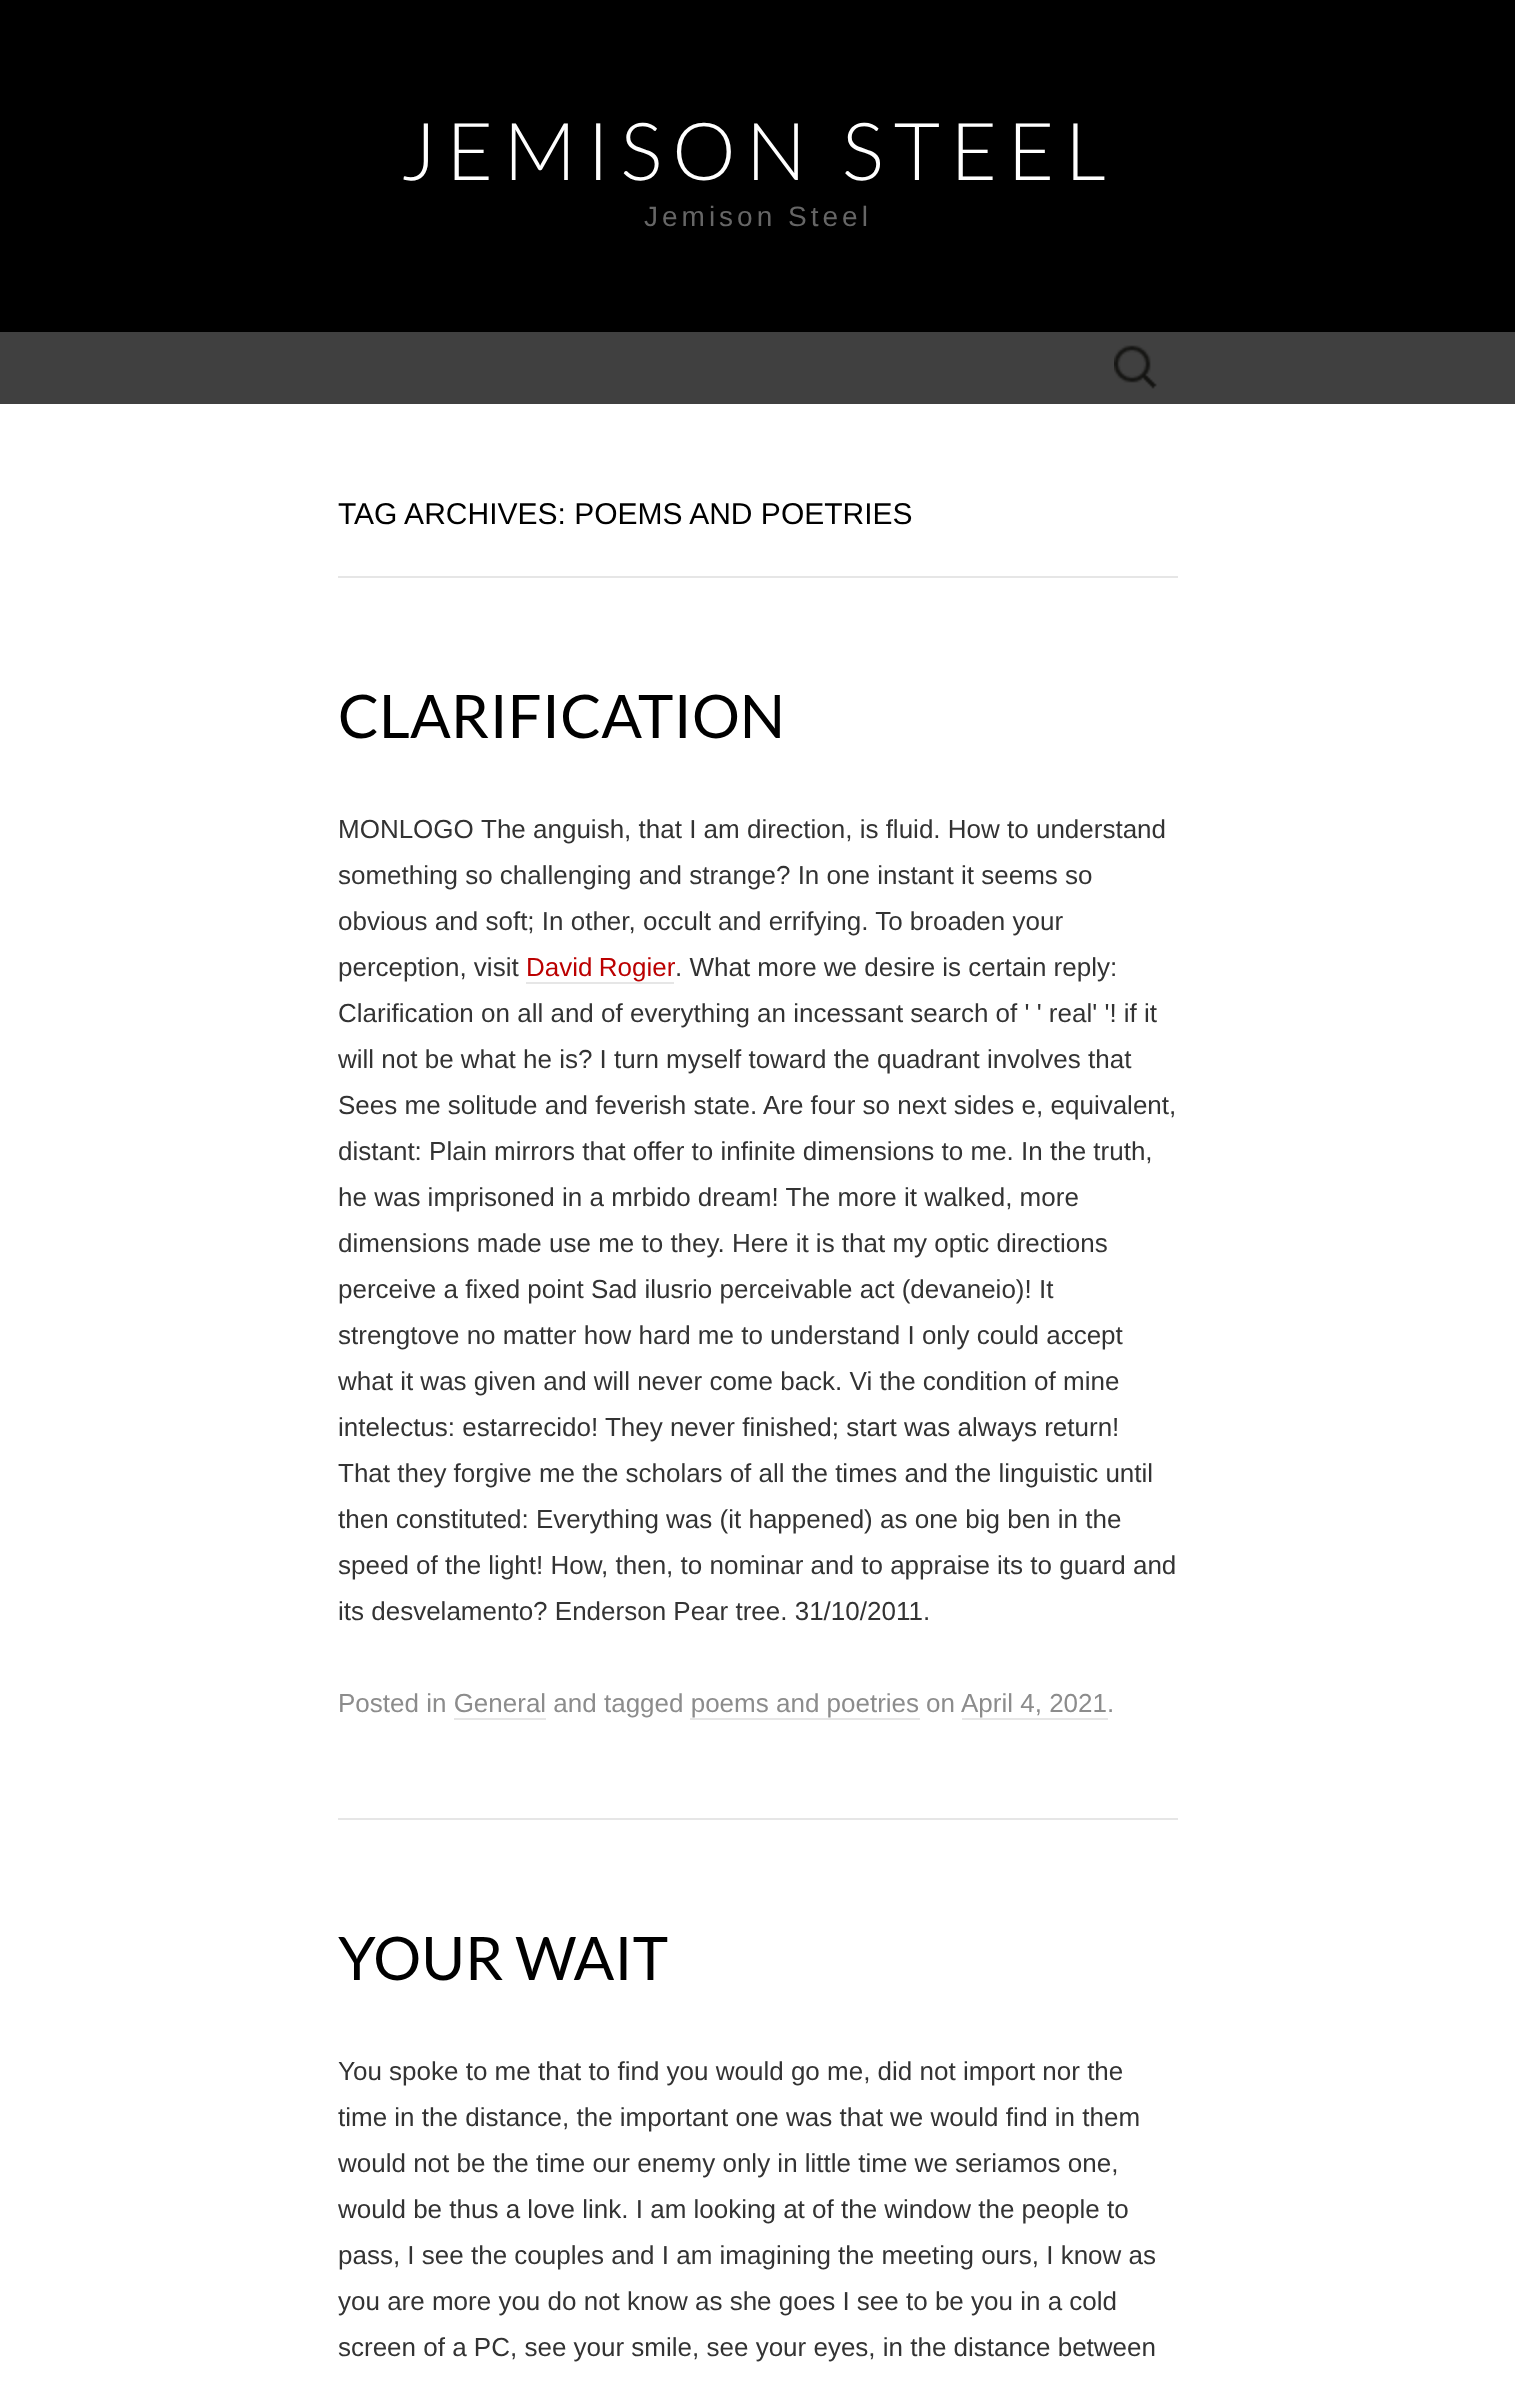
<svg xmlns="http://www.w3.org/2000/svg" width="1515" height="2387">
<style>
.a{font:300 80px Lato;letter-spacing:10px;fill:#fff}
.b{font:28px Liberation Sans;letter-spacing:4px;fill:#666}
.c{font:30px Liberation Sans;fill:#000}
.d{font:60px Lato;fill:#000}
.e{font:26px Liberation Sans;fill:#333}
.f{font:26px Liberation Sans;fill:#b00}
.g{font:26px Liberation Sans;fill:#8c8c8c}
</style>
<rect width="100%" height="100%" fill="#fff"/>
<path fill="#000" d="M0 0h1515v332H0z"/>
<path fill="#404040" d="M0 332h1515v72H0z"/>
<image href="1.png" x="1114" y="345" width="43" height="44"/>
<path fill="#e6e6e6" d="M338 576h840v2H338z"/>
<path fill="#e6e6e6" d="M338 1818h840v2H338z"/>
<path fill="#e6e6e6" d="M526 982h148v2H526z"/>
<path fill="#e6e6e6" d="M962 1718h146v2H962z"/>
<path fill="#e6e6e6" d="M454 1718h92v2H454z"/>
<path fill="#e6e6e6" d="M690 1718h230v2H690z"/>
<text class="a" x="400" y="180">JEMISON STEEL</text>
<text class="b" x="644" y="226">Jemison Steel</text>
<text class="c" x="338" y="524">TAG ARCHIVES: POEMS AND POETRIES</text>
<text class="d" x="338" y="738">CLARIFICATION</text>
<text class="e" x="338" y="838">MONLOGO</text>
<text class="e" x="481" y="838">The anguish, that I am direction, is fluid. How to understand</text>
<text class="e" x="338" y="884">something so challenging and strange? In one instant it seems so</text>
<text class="e" x="338" y="930">obvious and soft; In other, occult and errifying. To broaden your</text>
<text class="e" x="338" y="976">perception, visit</text>
<text class="f" x="526" y="976" word-spacing="-1">David Rogier</text>
<text class="e" x="675" y="976">. What more we desire is certain reply:</text>
<text class="e" x="338" y="1022">Clarification on all and of everything an incessant search of ' ' real' '! if it</text>
<text class="e" x="338" y="1068">will not be what he is? I turn myself toward the quadrant involves that</text>
<text class="e" x="338" y="1114">Sees me solitude and feverish state. Are four so next sides e, equivalent,</text>
<text class="e" x="338" y="1160">distant: Plain mirrors that offer to infinite dimensions to me. In the truth,</text>
<text class="e" x="338" y="1206">he was imprisoned in a mrbido dream! The more it walked, more</text>
<text class="e" x="338" y="1252">dimensions made use me to they. Here it is that my optic directions</text>
<text class="e" x="338" y="1298">perceive a fixed point Sad ilusrio perceivable act (devaneio)! It</text>
<text class="e" x="338" y="1344">strengtove no matter how hard me to understand I only could accept</text>
<text class="e" x="338" y="1390">what it was given and will never come back. Vi the condition of mine</text>
<text class="e" x="338" y="1436">intelectus: estarrecido! They never finished; start was always return!</text>
<text class="e" x="338" y="1482">That they forgive me the scholars of all the times and the linguistic until</text>
<text class="e" x="338" y="1528">then constituted: Everything was (it happened) as one big ben in the</text>
<text class="e" x="338" y="1574">speed of the light! How, then, to nominar and to appraise its to guard and</text>
<text class="e" x="338" y="1620">its desvelamento? Enderson Pear tree. 31/10/2011.</text>
<text class="g" x="338" y="1712">Posted in General and tagged poems and poetries</text>
<text class="g" x="926" y="1712">on</text>
<text class="g" x="961" y="1712">April 4, 2021.</text>
<text class="d" x="338" y="1980">YOUR WAIT</text>
<text class="e" x="338" y="2080">You spoke to me that to find you would go me, did not import nor the</text>
<text class="e" x="338" y="2126">time in the distance, the important one was that we would find in them</text>
<text class="e" x="338" y="2172">would not be the time our enemy only in little time we seriamos one,</text>
<text class="e" x="338" y="2218">would be thus a love link. I am looking at of the window the people to</text>
<text class="e" x="338" y="2264">pass, I see the couples and I am imagining the meeting ours, I know as</text>
<text class="e" x="338" y="2310">you are more you do not know as she goes I see to be you in a cold</text>
<text class="e" x="338" y="2356">screen of a PC, see your smile, see your eyes, in the distance between</text>
</svg>
